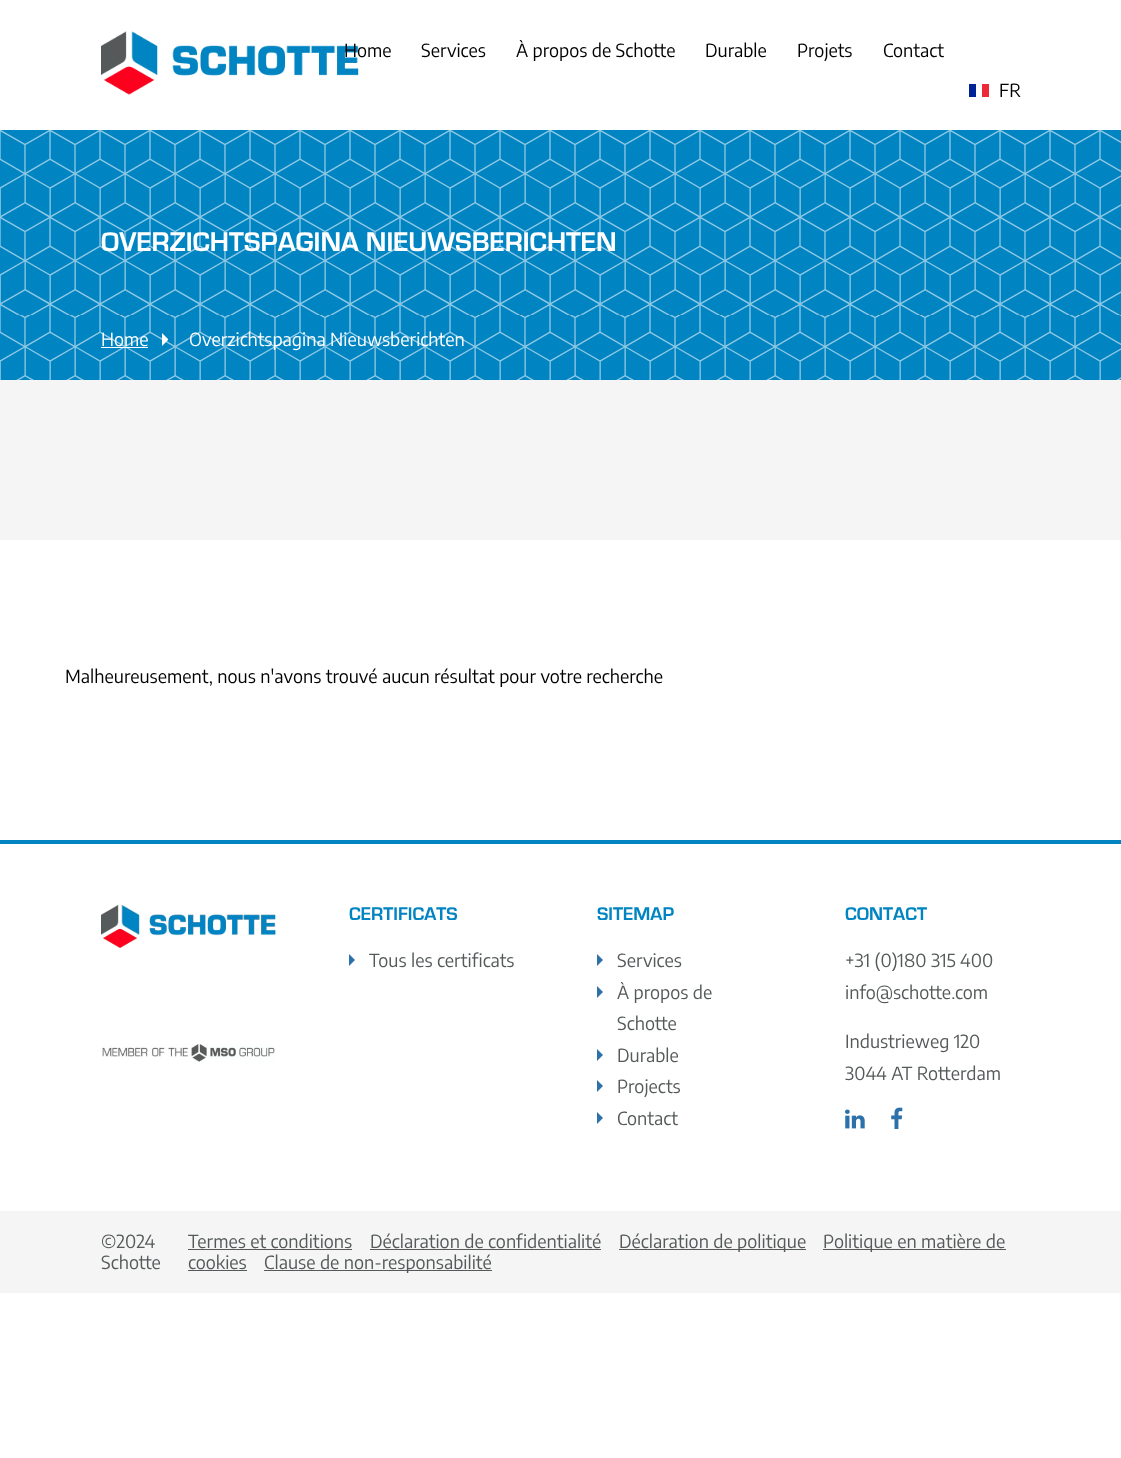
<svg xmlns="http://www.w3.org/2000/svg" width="1121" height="1458">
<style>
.a{font:18px Encode Sans Condensed;fill:#000}
.b{font:bold 28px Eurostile;fill:#fff}
.c{font:18px Encode Sans Condensed;fill:#fff}
.d{font:bold 19px Eurostile;fill:#0084c2}
.e{font:18px Encode Sans Condensed;fill:#55595a}
</style>
<rect width="100%" height="100%" fill="#fff"/>
<image href="1.png" x="101" y="31" width="258" height="64"/>
<path fill="#ed2939" d="M982 84h7v13H982z"/>
<path fill="#002395" d="M969 84h7v13H969z"/>
<path fill="#0084c2" d="M0 130h1121v250H0z"/>
<image href="2.png" x="0" y="130" width="1121" height="250"/>
<path fill="#fff" d="M101 347h47v1H101z"/>
<path fill="#fff" d="M162 346v-13l6 6v1z"/>
<path fill="#f5f5f5" d="M0 380h1121v160H0z"/>
<path fill="#0084c2" d="M0 840h1121v4H0z"/>
<image href="3.png" x="101" y="905" width="175" height="43"/>
<image href="4.png" x="102" y="1044" width="173" height="18"/>
<path fill="#2d71aa" d="M349 966v-12l6 6z"/>
<path fill="#2d71aa" d="M597 966v-12l6 6z"/>
<path fill="#2d71aa" d="M597 998v-12l6 6z"/>
<path fill="#2d71aa" d="M597 1061v-12l6 6z"/>
<path fill="#2d71aa" d="M597 1092v-12l6 6z"/>
<path fill="#2d71aa" d="M597 1124v-12l6 6z"/>
<image href="5.png" x="845" y="1109" width="20" height="20"/>
<image href="6.png" x="891" y="1107" width="12" height="22"/>
<path fill="#f5f5f5" d="M0 1211h1121v82H0z"/>
<path fill="#55595a" d="M188 1249h164v1H188z"/>
<path fill="#55595a" d="M370 1249h231v1H370z"/>
<path fill="#55595a" d="M619 1249h187v1H619z"/>
<path fill="#55595a" d="M823 1249h183v1H823z"/>
<path fill="#55595a" d="M188 1270h59v1H188z"/>
<path fill="#55595a" d="M264 1270h228v1H264z"/>
<text class="a" x="344" y="57">Home</text>
<text class="a" x="421" y="57">Services</text>
<text class="a" x="516" y="57">À propos de Schotte</text>
<text class="a" x="705" y="57">Durable</text>
<text class="a" x="797" y="57">Projets</text>
<text class="a" x="883" y="57">Contact</text>
<text class="a" x="999" y="97">FR</text>
<text class="b" x="101" y="251">OVERZICHTSPAGINA NIEUWSBERICHTEN</text>
<text class="c" x="101" y="346">Home</text>
<text class="c" x="189" y="346">Overzichtspagina Nieuwsberichten</text>
<text class="a" x="65" y="683">Malheureusement, nous n'avons trouvé aucun résultat pour votre recherche</text>
<text class="d" x="349" y="920">CERTIFICATS</text>
<text class="e" x="369" y="967">Tous les certificats</text>
<text class="d" x="597" y="920">SITEMAP</text>
<text class="e" x="617" y="967">Services</text>
<text class="e" x="617" y="999">À propos de</text>
<text class="e" x="617" y="1030">Schotte</text>
<text class="e" x="617" y="1062">Durable</text>
<text class="e" x="617" y="1093">Projects</text>
<text class="e" x="617" y="1125">Contact</text>
<text class="d" x="845" y="920">CONTACT</text>
<text class="e" x="845" y="967">+31 (0)180 315 400</text>
<text class="e" x="845" y="999">info@schotte.com</text>
<text class="e" x="845" y="1048">Industrieweg 120</text>
<text class="e" x="845" y="1080">3044 AT Rotterdam</text>
<text class="e" x="101" y="1248">©2024</text>
<text class="e" x="101" y="1269">Schotte</text>
<text class="e" x="188" y="1248">Termes et conditions</text>
<text class="e" x="370" y="1248">Déclaration de confidentialité</text>
<text class="e" x="619" y="1248">Déclaration de politique</text>
<text class="e" x="823" y="1248">Politique en matière de</text>
<text class="e" x="188" y="1269">cookies</text>
<text class="e" x="264" y="1269">Clause de non-responsabilité</text>
</svg>
